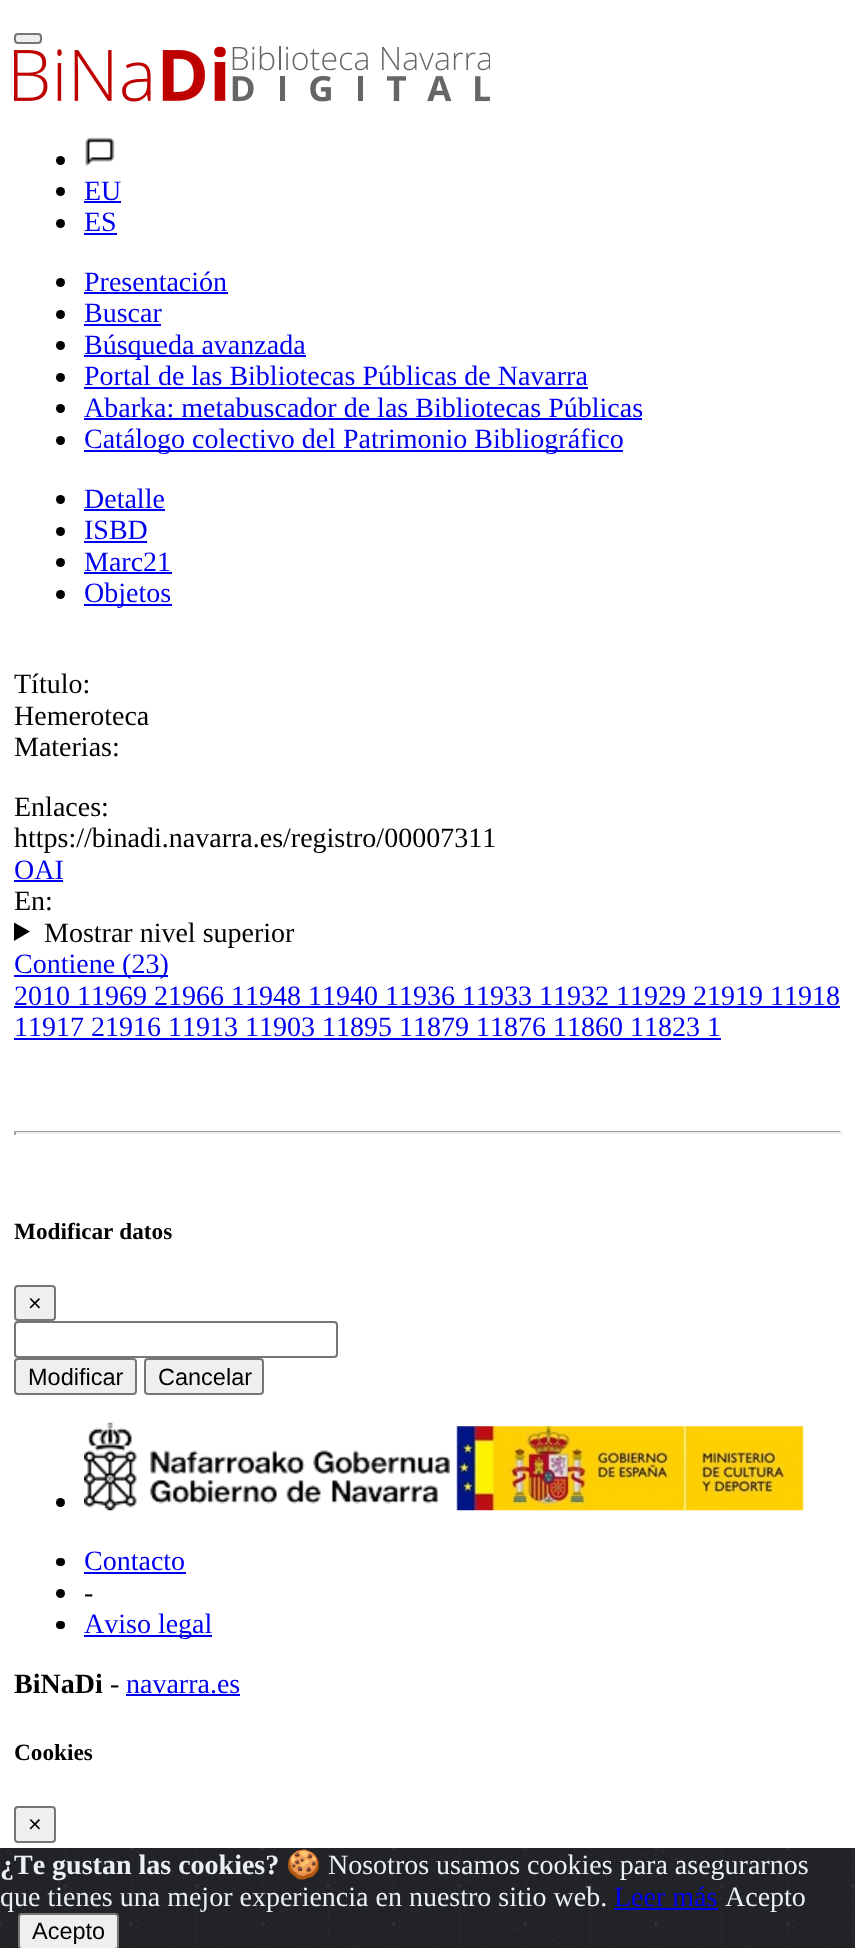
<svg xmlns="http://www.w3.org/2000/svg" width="855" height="1948">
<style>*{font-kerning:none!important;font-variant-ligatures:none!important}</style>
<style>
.a{font:28px Liberation Serif;fill:#00e}
.b{font:28px Liberation Serif;fill:#000}
.c{font:bold 23.25px Liberation Serif;fill:#000}
.d{font:23.5px Liberation Sans;fill:#000}
.e{font:bold 28px Liberation Serif;fill:#000}
.f{font:bold 28px Liberation Serif;fill:#ecf0f1}
.g{font:28px Noto Color Emoji;fill:#ecf0f1}
.h{font:28px Liberation Serif;fill:#ecf0f1}
</style>
<rect width="100%" height="100%" fill="#fff"/>
<rect fill="#efefef" stroke="#767676" stroke-width="2" x="15" y="34" width="26" height="9" rx="3"/>
<image href="1.png" x="14" y="46" width="476" height="56"/>
<circle fill="#000" cx="60.5" cy="160.5" r="4.5"/>
<image href="2.png" x="85" y="137" width="30" height="30"/>
<circle fill="#000" cx="60.5" cy="191.5" r="4.5"/>
<path fill="#00e" d="M84 201h37v2H84z"/>
<circle fill="#000" cx="60.5" cy="223.5" r="4.5"/>
<path fill="#00e" d="M84 233h33v2H84z"/>
<circle fill="#000" cx="60.5" cy="282.5" r="4.5"/>
<path fill="#00e" d="M84 292h144v2H84z"/>
<circle fill="#000" cx="60.5" cy="314.5" r="4.5"/>
<path fill="#00e" d="M84 324h77v2H84z"/>
<circle fill="#000" cx="60.5" cy="345.5" r="4.5"/>
<path fill="#00e" d="M84 355h222v2H84z"/>
<circle fill="#000" cx="60.5" cy="377.5" r="4.5"/>
<path fill="#00e" d="M84 387h504v2H84z"/>
<circle fill="#000" cx="60.5" cy="408.5" r="4.5"/>
<path fill="#00e" d="M84 418h558v2H84z"/>
<circle fill="#000" cx="60.5" cy="440.5" r="4.5"/>
<path fill="#00e" d="M84 450h539v2H84z"/>
<circle fill="#000" cx="60.5" cy="499.5" r="4.5"/>
<path fill="#00e" d="M84 509h81v2H84z"/>
<circle fill="#000" cx="60.5" cy="531.5" r="4.5"/>
<path fill="#00e" d="M84 541h63v2H84z"/>
<circle fill="#000" cx="60.5" cy="562.5" r="4.5"/>
<path fill="#00e" d="M84 572h88v2H84z"/>
<circle fill="#000" cx="60.5" cy="594.5" r="4.5"/>
<path fill="#00e" d="M84 604h88v2H84z"/>
<path fill="#00e" d="M14 880h49v2H14z"/>
<path fill="#000" d="M14 922.5l16 9l-16 9.5z"/>
<path fill="#00e" d="M14 975h154v2H14z"/>
<path fill="#00e" d="M14 1006h826v2H14z"/>
<path fill="#00e" d="M14 1038h707v2H14z"/>
<path fill="#9f9f9f" d="M14 1131h828v1H14z"/>
<path fill="#eee" d="M840 1131h2v4H840z"/>
<path fill="#eee" d="M14 1132h828v2H14z"/>
<path fill="#9f9f9f" d="M14 1131h2v4H14z"/>
<rect fill="#efefef" stroke="#767676" stroke-width="2" x="15" y="1286" width="40" height="34" rx="3"/>
<rect fill="none" stroke="#767676" stroke-width="2" x="15" y="1322" width="322" height="35" rx="3"/>
<rect fill="#efefef" stroke="#767676" stroke-width="2" x="15" y="1359" width="121" height="35" rx="3"/>
<rect fill="#efefef" stroke="#767676" stroke-width="2" x="145" y="1359" width="118" height="35" rx="3"/>
<circle fill="#000" cx="60.5" cy="1502.5" r="4.5"/>
<image href="3.png" x="84" y="1422" width="366" height="89"/>
<image href="4.png" x="456" y="1426" width="348" height="85"/>
<rect fill="#000" x="56" y="1558" width="9" height="8" rx="4"/>
<path fill="#00e" d="M84 1572h102v2H84z"/>
<circle fill="#000" cx="60.5" cy="1593.5" r="4.5"/>
<rect fill="#000" x="56" y="1621" width="9" height="8" rx="4"/>
<path fill="#00e" d="M84 1635h128v2H84z"/>
<path fill="#00e" d="M126 1694h114v2H126z"/>
<rect fill="#efefef" stroke="#767676" stroke-width="2" x="15" y="1807" width="40" height="35" rx="3"/>
<image href="5.png" x="0" y="1848" width="855" height="100"/>
<path fill="#00e" d="M614 1908h104v2H614z"/>
<rect fill="#efefef" stroke="#767676" stroke-width="2" x="19" y="1914" width="99" height="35" rx="3"/>
<text class="a" x="84" y="200">EU</text>
<text class="a" x="84" y="231">ES</text>
<text class="a" x="84" y="291">Presentación</text>
<text class="a" x="84" y="322">Buscar</text>
<text class="a" x="84" y="354">Búsqueda avanzada</text>
<text class="a" x="84" y="385">Portal de las Bibliotecas Públicas de Navarra</text>
<text class="a" x="84" y="417">Abarka: metabuscador de las Bibliotecas Públicas</text>
<text class="a" x="84" y="448">Catálogo colectivo del Patrimonio Bibliográfico</text>
<text class="a" x="84" y="508">Detalle</text>
<text class="a" x="84" y="539">ISBD</text>
<text class="a" x="84" y="571">Marc21</text>
<text class="a" x="84" y="602">Objetos</text>
<text class="b" x="14" y="693">Título:</text>
<text class="b" x="14" y="725">Hemeroteca</text>
<text class="b" x="14" y="756">Materias:</text>
<text class="b" x="14" y="816">Enlaces:</text>
<text class="b" x="14" y="847">https://binadi.navarra.es/registro/00007311</text>
<text class="a" x="14" y="879">OAI</text>
<text class="b" x="14" y="910">En:</text>
<text class="b" x="44" y="942">Mostrar nivel superior</text>
<text class="a" x="14" y="973">Contiene (23)</text>
<text class="a" x="14" y="1005">2010 11969 21966 11948 11940 11936 11933</text>
<text class="a" x="539" y="1005">11932 11929 21919 11918</text>
<text class="a" x="14" y="1036">11917 21916 11913 11903 11895 11879</text>
<text class="a" x="476" y="1036">11876 11860 11823 1</text>
<text class="c" x="14" y="1239">Modificar datos</text>
<text class="d" x="28" y="1311">×</text>
<text class="d" x="28" y="1385">Modificar</text>
<text class="d" x="158" y="1385">Cancelar</text>
<text class="a" x="84" y="1570">Contacto</text>
<text class="b" x="84" y="1602">-</text>
<text class="a" x="84" y="1633">Aviso legal</text>
<text class="e" x="14" y="1693">BiNaDi</text>
<text class="b" x="110" y="1693">-</text>
<text class="a" x="126" y="1693">navarra.es</text>
<text class="c" x="14" y="1760">Cookies</text>
<text class="d" x="28" y="1832">×</text>
<text class="f" x="0" y="1874">¿Te gustan las cookies?</text>
<text class="g" x="286" y="1874">🍪</text>
<text class="h" x="328" y="1874">Nosotros usamos cookies para asegurarnos</text>
<text class="h" x="0" y="1906">que tienes una mejor experiencia en nuestro sitio web.</text>
<text class="a" x="614" y="1906">Leer más</text>
<text class="h" x="725" y="1906">Acepto</text>
<text class="d" x="32" y="1939">Acepto</text>
</svg>
